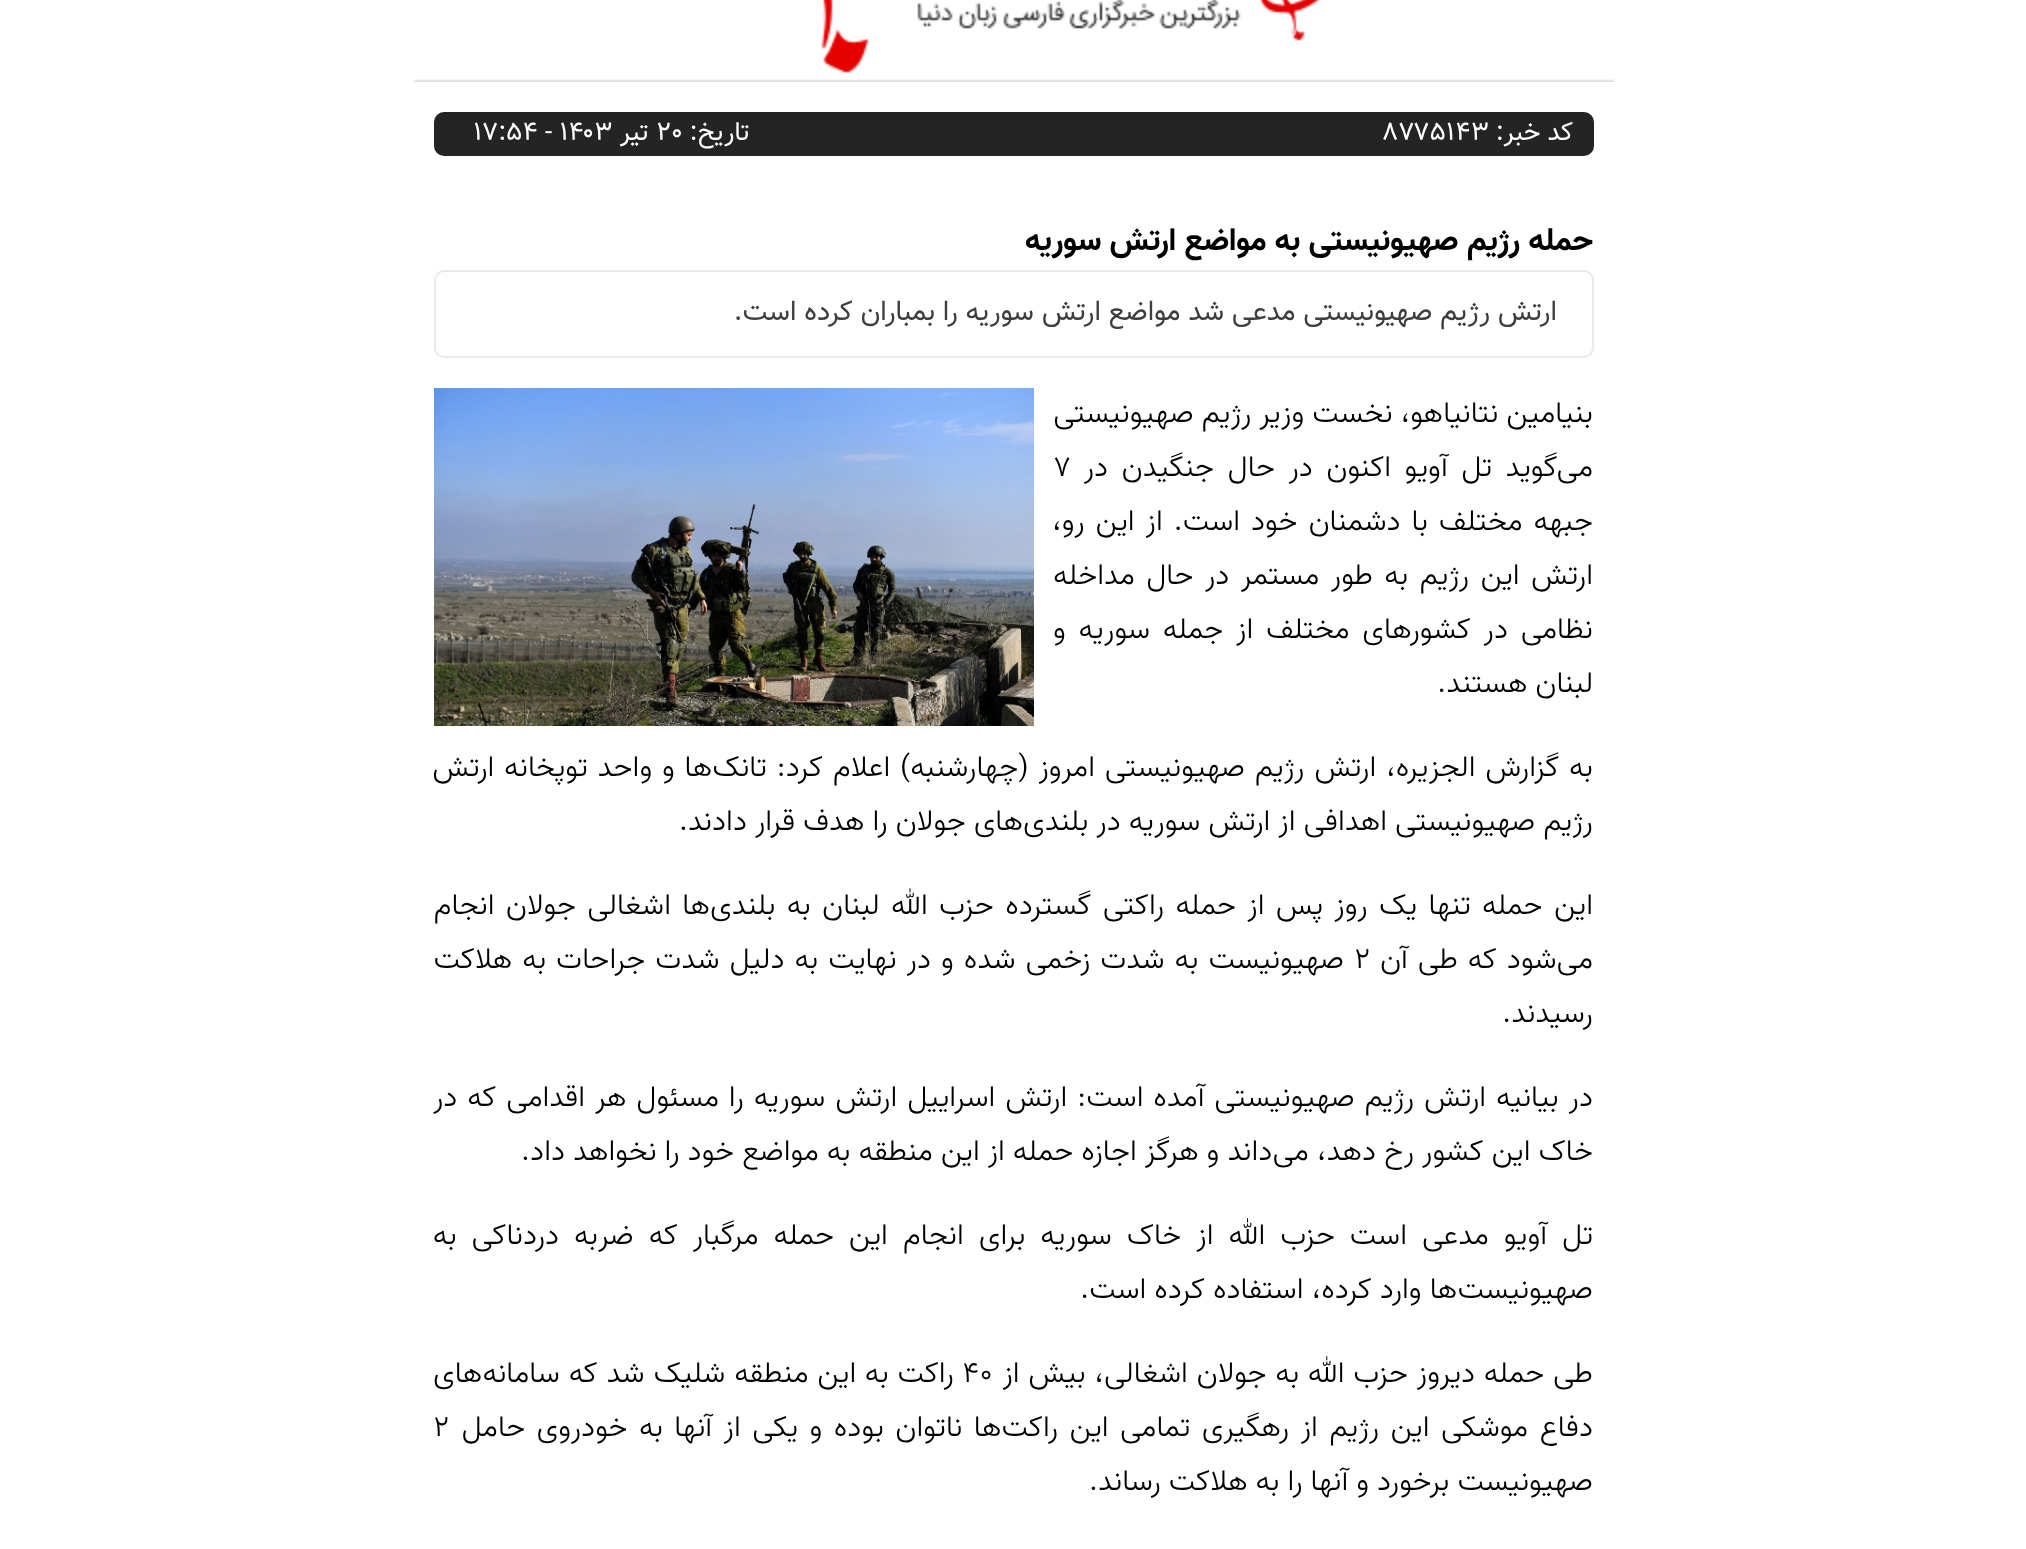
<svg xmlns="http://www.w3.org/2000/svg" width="2026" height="1549">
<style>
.a{font:26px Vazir;direction:rtl;fill:#fff}
.b{font:26px Vazir;fill:#fff}
.c{font:bold 32px Vazir;direction:rtl;fill:#000}
.d{font:28px Vazir;direction:rtl;fill:#3e3e3e}
.e{font:300 30px Vazir;direction:rtl;fill:#000}
.f{font:300 30px Vazir;fill:#000}
</style>
<rect width="100%" height="100%" fill="#fff"/>
<image href="1.png" x="414" y="0" width="1200" height="82"/>
<rect fill="#242424" x="434" y="112" width="1160" height="44" rx="10"/>
<rect fill="none" stroke="#e9e9e9" stroke-width="2" x="435" y="271" width="1158" height="86" rx="9"/>
<image href="2.png" x="434" y="388" width="600" height="338"/>
<text class="a" x="1573" y="140">کد خبر:</text>
<text class="b" x="1384" y="140">۸۷۷۵۱۴۳</text>
<text class="a" x="750" y="140">تاریخ:</text>
<text class="b" x="656" y="140">۲۰</text>
<text class="a" x="649" y="140">تير</text>
<text class="b" x="473" y="140">۱۷:۵۴ - ۱۴۰۳</text>
<text class="c" x="1593" y="250">حمله رژیم صهیونیستی به مواضع ارتش سوریه</text>
<text class="d" x="1557" y="320">ارتش رژیم صهیونیستی مدعی شد مواضع ارتش سوریه را بمباران کرده است.</text>
<text class="e" x="1593" y="422">بنیامین نتانیاهو، نخست وزیر رژیم صهیونیستی</text>
<text class="e" x="1593" y="476" word-spacing="5.5">می‌گوید تل آویو اکنون در حال جنگیدن در</text>
<text class="f" x="1053" y="476">۷</text>
<text class="e" x="1593" y="530" word-spacing="3">جبهه مختلف با دشمنان خود است. از این رو،</text>
<text class="e" x="1593" y="584" word-spacing="3.4">ارتش این رژیم به طور مستمر در حال مداخله</text>
<text class="e" x="1593" y="638" word-spacing="4.75">نظامی در کشور‌های مختلف از جمله سوریه و</text>
<text class="e" x="1593" y="692">لبنان هستند.</text>
<text class="e" x="1593" y="776" word-spacing="1.75">به گزارش الجزیره، ارتش رژیم صهیونیستی امروز (چهارشنبه) اعلام کرد: تانک‌ها و واحد توپخانه ارتش</text>
<text class="e" x="1593" y="830">رژیم صهیونیستی اهدافی از ارتش سوریه در بلندی‌های جولان را هدف قرار دادند.</text>
<text class="e" x="1593" y="914" word-spacing="3.4">این حمله تنها یک روز پس از حمله راکتی گسترده حزب الله لبنان به بلندی‌ها اشغالی جولان انجام</text>
<text class="e" x="1593" y="968" word-spacing="2">می‌شود که طی آن</text>
<text class="f" x="1354" y="968">۲</text>
<text class="e" x="1344" y="968" word-spacing="2">صهیونیست به شدت زخمی شده و در نهایت به دلیل شدت جراحات به هلاکت</text>
<text class="e" x="1593" y="1022">رسیدند.</text>
<text class="e" x="1593" y="1106" word-spacing="1.9">در بیانیه ارتش رژیم صهیونیستی آمده است: ارتش اسراییل ارتش سوریه را مسئول هر اقدامی که در</text>
<text class="e" x="1593" y="1160">خاک این کشور رخ دهد، می‌داند و هرگز اجازه حمله از این منطقه به مواضع خود را نخواهد داد.</text>
<text class="e" x="1593" y="1244" word-spacing="7">تل آویو مدعی است حزب الله از خاک سوریه برای انجام این حمله مرگبار که ضربه دردناکی به</text>
<text class="e" x="1593" y="1298">صهیونیست‌ها وارد کرده، استفاده کرده است.</text>
<text class="e" x="1593" y="1382" word-spacing="0.75">طی حمله دیروز حزب الله به جولان اشغالی، بیش از</text>
<text class="f" x="963" y="1382">۴۰</text>
<text class="e" x="954" y="1382" word-spacing="0.75">راکت به این منطقه شلیک شد که سامانه‌های</text>
<text class="e" x="1593" y="1436" word-spacing="3.5">دفاع موشکی این رژیم از رهگیری تمامی این راکت‌ها ناتوان بوده و یکی از آنها به خودروی حامل</text>
<text class="f" x="433" y="1436">۲</text>
<text class="e" x="1593" y="1490">صهیونیست برخورد و آنها را به هلاکت رساند.</text>
</svg>
